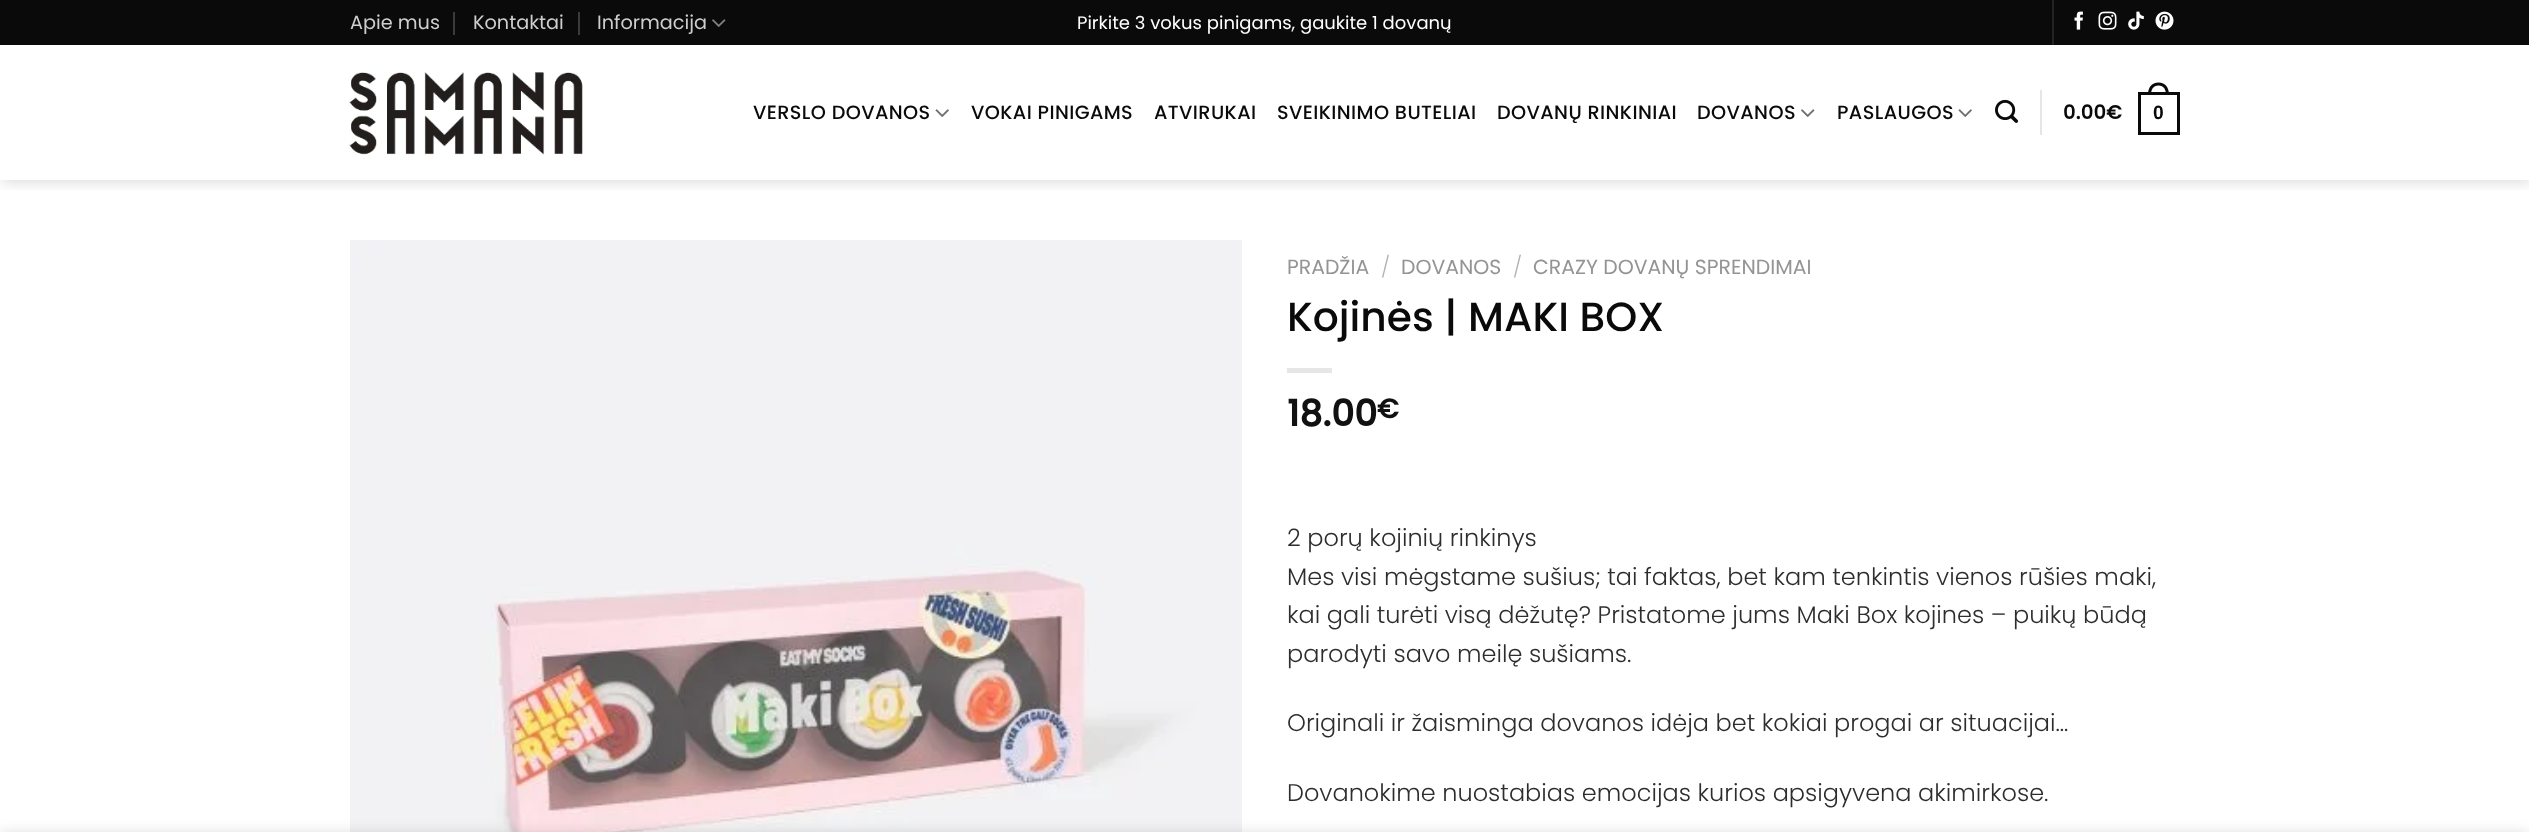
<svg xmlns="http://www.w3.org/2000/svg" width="2529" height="832">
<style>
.a{font:19.25px Poppins;fill:#cecece}
.b{font:18px Poppins;fill:#fff}
.c{font:500 19.25px Poppins;letter-spacing:0.4px;fill:#0a0a0a}
.d{font:bold 19.25px Poppins;letter-spacing:0.4px;fill:#0a0a0a}
.e{font:bold 19.25px Liberation Sans;letter-spacing:0.4px;fill:#0a0a0a}
.f{font:20.4px Poppins;fill:#949494}
.g{font:300 20.4px Poppins;fill:#b2b2b2}
.h{font:500 40.75px Poppins;fill:#0a0a0a}
.i{font:bold 36px Poppins;fill:#111}
.j{font:bold 27px Poppins;fill:#111}
.k{font:300 24px Poppins;fill:#2d2d2d}
</style>
<defs>
<clipPath id="clip1"><path d="M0 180h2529v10H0z"/></clipPath>
</defs>
<rect width="100%" height="100%" fill="#fff"/>
<g clip-path="url(#clip1)">
<path fill="#00000026" filter="blur(7.5px)" d="M2 2h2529v180H2z"/>
</g>
<path fill="#0a0a0a" d="M0 0h2529v45H0z"/>
<path fill="#3b3b3b" d="M453 12h2v23H453z"/>
<path fill="#3b3b3b" d="M578 12h2v23H578z"/>
<image href="1.png" x="712" y="19" width="14" height="8"/>
<path fill="#232323" d="M2052 0h2v45H2052z"/>
<image href="2.png" x="2074" y="11" width="9" height="19"/>
<image href="3.png" x="2098" y="11" width="19" height="19"/>
<image href="4.png" x="2128" y="11" width="16" height="19"/>
<image href="5.png" x="2155" y="11" width="19" height="19"/>
<image href="6.png" x="349" y="72" width="234" height="83"/>
<image href="7.png" x="935" y="109" width="14" height="8"/>
<image href="8.png" x="1801" y="109" width="14" height="8"/>
<image href="7.png" x="1958" y="109" width="14" height="8"/>
<image href="9.png" x="1995" y="99" width="23" height="24"/>
<path fill="#e6e6e6" d="M2040 90h2v45H2040z"/>
<path fill="none" stroke="#0a0a0a" stroke-width="3" d="M2139.5 93.5h39v40H2139.5z"/>
<path fill="#0a0a0a" fill-rule="evenodd" d="M2158.5 82.5c7 0 10.5 5.5 10.5 12h-21c0-6.5 3.5-12 10.5-12zm0 3c5.5 0 7.5 4.5 7.5 9h-15c0-4.5 2-9 7.5-9z"/>
<image href="10.png" x="350" y="240" width="892" height="592"/>
<path fill="#e6e6e6" d="M1287 368h45v5H1287z"/>
<path fill="#00000024" filter="blur(7px)" d="M0 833h2529v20H0z"/>
<text class="a" x="350" y="29">Apie mus</text>
<text class="a" x="473" y="29">Kontaktai</text>
<text class="a" x="597" y="29">Informacija</text>
<text class="b" x="1077" y="29">Pirkite 3 vokus pinigams, gaukite 1 dovanų</text>
<text class="c" x="753" y="119">VERSLO DOVANOS</text>
<text class="c" x="971" y="119">VOKAI PINIGAMS</text>
<text class="c" x="1154" y="119">ATVIRUKAI</text>
<text class="c" x="1277" y="119">SVEIKINIMO BUTELIAI</text>
<text class="c" x="1497" y="119">DOVANŲ RINKINIAI</text>
<text class="c" x="1697" y="119">DOVANOS</text>
<text class="c" x="1837" y="119">PASLAUGOS</text>
<text class="d" x="2063" y="119">0.00€</text>
<text class="e" x="2153" y="119">0</text>
<text class="f" x="1287" y="274">PRADŽIA</text>
<text class="g" x="1381" y="274">/</text>
<text class="f" x="1401" y="274">DOVANOS</text>
<text class="g" x="1513" y="274">/</text>
<text class="f" x="1533" y="274">CRAZY DOVANŲ SPRENDIMAI</text>
<text class="h" x="1287" y="331">Kojinės | MAKI BOX</text>
<text class="i" x="1287" y="426">18.00</text>
<text class="j" x="1377" y="418">€</text>
<text class="k" x="1287" y="546">2 porų kojinių rinkinys</text>
<text class="k" x="1287" y="585">Mes visi mėgstame sušius; tai faktas, bet kam tenkintis vienos rūšies maki,</text>
<text class="k" x="1287" y="623">kai gali turėti visą dėžutę? Pristatome jums Maki Box kojines – puikų būdą</text>
<text class="k" x="1287" y="662">parodyti savo meilę sušiams.</text>
<text class="k" x="1287" y="731">Originali ir žaisminga dovanos idėja bet kokiai progai ar situacijai…</text>
<text class="k" x="1287" y="801">Dovanokime nuostabias emocijas kurios apsigyvena akimirkose.</text>
</svg>
